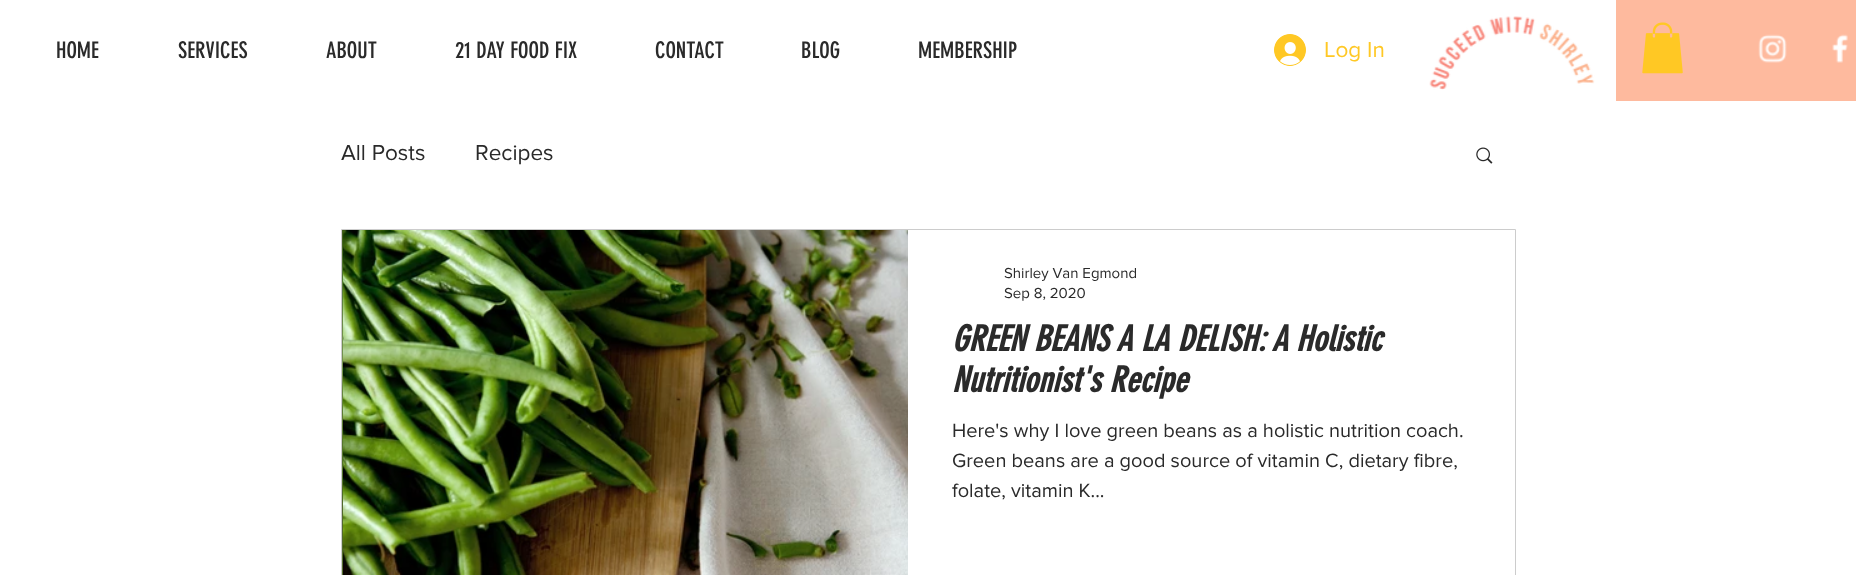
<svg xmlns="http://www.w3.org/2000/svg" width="1856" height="575">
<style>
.a{font:22.5px 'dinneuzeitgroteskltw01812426';fill:#2a2a2a}
.b{font:22.5px 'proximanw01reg';fill:#ffc824}
.c{font:22.5px 'proximanw01reg';fill:#2a2a2a}
.d{font:15px 'proximanw01reg';fill:#2a2a2a}
.e{font:italic bold 35px 'dinneuzeitgroteskltw01812426';fill:#2a2a2a}
.f{font:20px 'proximanw01reg';fill:#2a2a2a}
</style>
<rect width="100%" height="100%" fill="#fff"/>
<image href="1.png" x="1274" y="34" width="32" height="32"/>
<image href="2.png" x="1429" y="16" width="166" height="74"/>
<path fill="#feba9e" d="M1616 0h240v101H1616z"/>
<image href="3.png" x="1642" y="22" width="41" height="52"/>
<image href="4.png" x="1758" y="34" width="29" height="29"/>
<image href="5.png" x="1832" y="34" width="16" height="29"/>
<image href="6.png" x="1476" y="147" width="17" height="17"/>
<path fill="none" stroke="#ccc" d="M341.5 229.5h1174v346H341.5z"/>
<image href="7.png" x="342" y="230" width="1" height="345"/>
<image href="8.png" x="343" y="230" width="565" height="345"/>
<text class="a" x="56" y="58">HOME</text>
<text class="a" x="178" y="58">SERVICES</text>
<text class="a" x="326" y="58">ABOUT</text>
<text class="a" x="455" y="58">21 DAY FOOD FIX</text>
<text class="a" x="655" y="58">CONTACT</text>
<text class="a" x="801" y="58">BLOG</text>
<text class="a" x="918" y="58">MEMBERSHIP</text>
<text class="b" x="1324" y="57">Log In</text>
<text class="c" x="341" y="160">All Posts</text>
<text class="c" x="475" y="160">Recipes</text>
<text class="d" x="1004" y="278">Shirley Van Egmond</text>
<text class="d" x="1004" y="298">Sep 8, 2020</text>
<text class="e" x="952" y="351">GREEN BEANS A LA DELISH: A Holistic</text>
<text class="e" x="952" y="392">Nutritionist's Recipe</text>
<text class="f" x="952" y="437">Here's why I love green beans as a holistic nutrition coach.</text>
<text class="f" x="952" y="467">Green beans are a good source of vitamin C, dietary fibre,</text>
<text class="f" x="952" y="497">folate, vitamin K...</text>
</svg>
